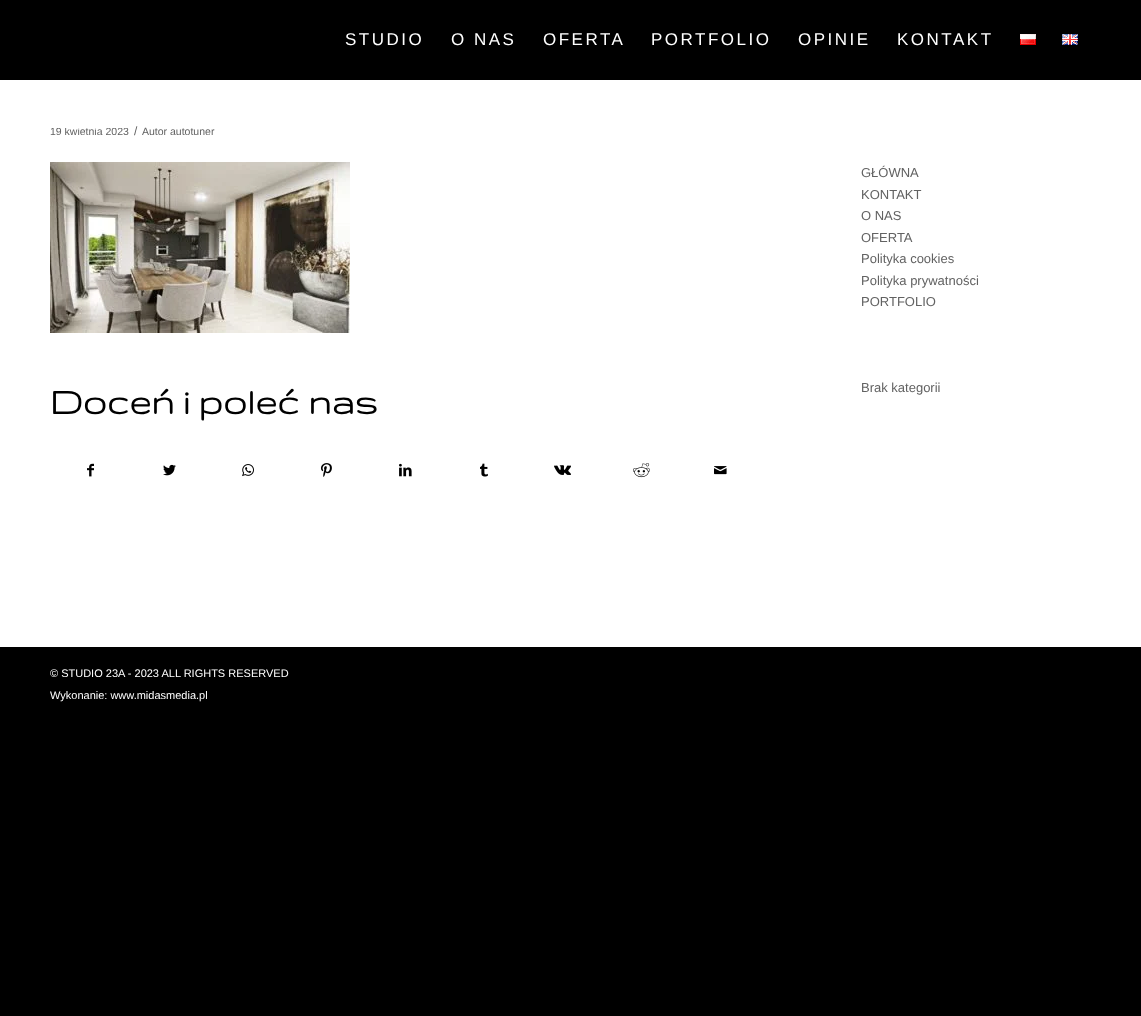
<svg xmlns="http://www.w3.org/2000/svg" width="1141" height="1016">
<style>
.a{font:17px Liberation Sans;letter-spacing:2.5px;fill:#fff}
.b{font:10.5px Liberation Sans;fill:#626262}
.c{font:12px Liberation Sans;fill:#626262}
.d{font:bold 40px Gruppo;fill:#000}
.e{font:13px Liberation Sans;fill:#626262}
.f{font:11px Liberation Sans;fill:#fff}
</style>
<defs>
<clipPath id="clip1"><path d="M50 128h760v469H50z"/></clipPath>
</defs>
<rect width="100%" height="100%" fill="#000"/>
<image href="1.png" x="1020" y="34" width="16" height="11"/>
<image href="2.png" x="1062" y="34" width="16" height="11"/>
<path fill="#fff" d="M0 80h1141v567H0z"/>
<image href="3.png" x="50" y="162" width="300" height="171"/>
<image href="4.png" x="87" y="463" width="7" height="14"/>
<image href="5.png" x="163" y="464" width="13" height="12"/>
<image href="6.png" x="242" y="464" width="12" height="13"/>
<image href="7.png" x="321" y="463" width="11" height="14"/>
<image href="8.png" x="399" y="463" width="13" height="14"/>
<image href="9.png" x="480" y="463" width="8" height="14"/>
<image href="10.png" x="554" y="465" width="17" height="10"/>
<image href="11.png" x="633" y="463" width="17" height="15"/>
<image href="12.png" x="714" y="466" width="13" height="9"/>
<text class="a" x="345" y="45">STUDIO</text>
<text class="a" x="451" y="45">O NAS</text>
<text class="a" x="543" y="45">OFERTA</text>
<text class="a" x="651" y="45">PORTFOLIO</text>
<text class="a" x="798" y="45">OPINIE</text>
<text class="a" x="897" y="45">KONTAKT</text>
<g clip-path="url(#clip1)">
<text class="b" x="50" y="135">19 kwietnia 2023</text>
</g>
<text class="c" x="134" y="135">/</text>
<text class="b" x="142" y="135">Autor autotuner</text>
<text class="d" x="50" y="414">Doceń i poleć nas</text>
<text class="e" x="861" y="177">GŁÓWNA</text>
<text class="e" x="861" y="199">KONTAKT</text>
<text class="e" x="861" y="220">O NAS</text>
<text class="e" x="861" y="242">OFERTA</text>
<text class="e" x="861" y="263">Polityka cookies</text>
<text class="e" x="861" y="285">Polityka prywatności</text>
<text class="e" x="861" y="306">PORTFOLIO</text>
<text class="e" x="861" y="392">Brak kategorii</text>
<text class="f" x="50" y="677">© STUDIO 23A - 2023 ALL RIGHTS RESERVED</text>
<text class="f" x="50" y="699">Wykonanie: www.midasmedia.pl</text>
</svg>
